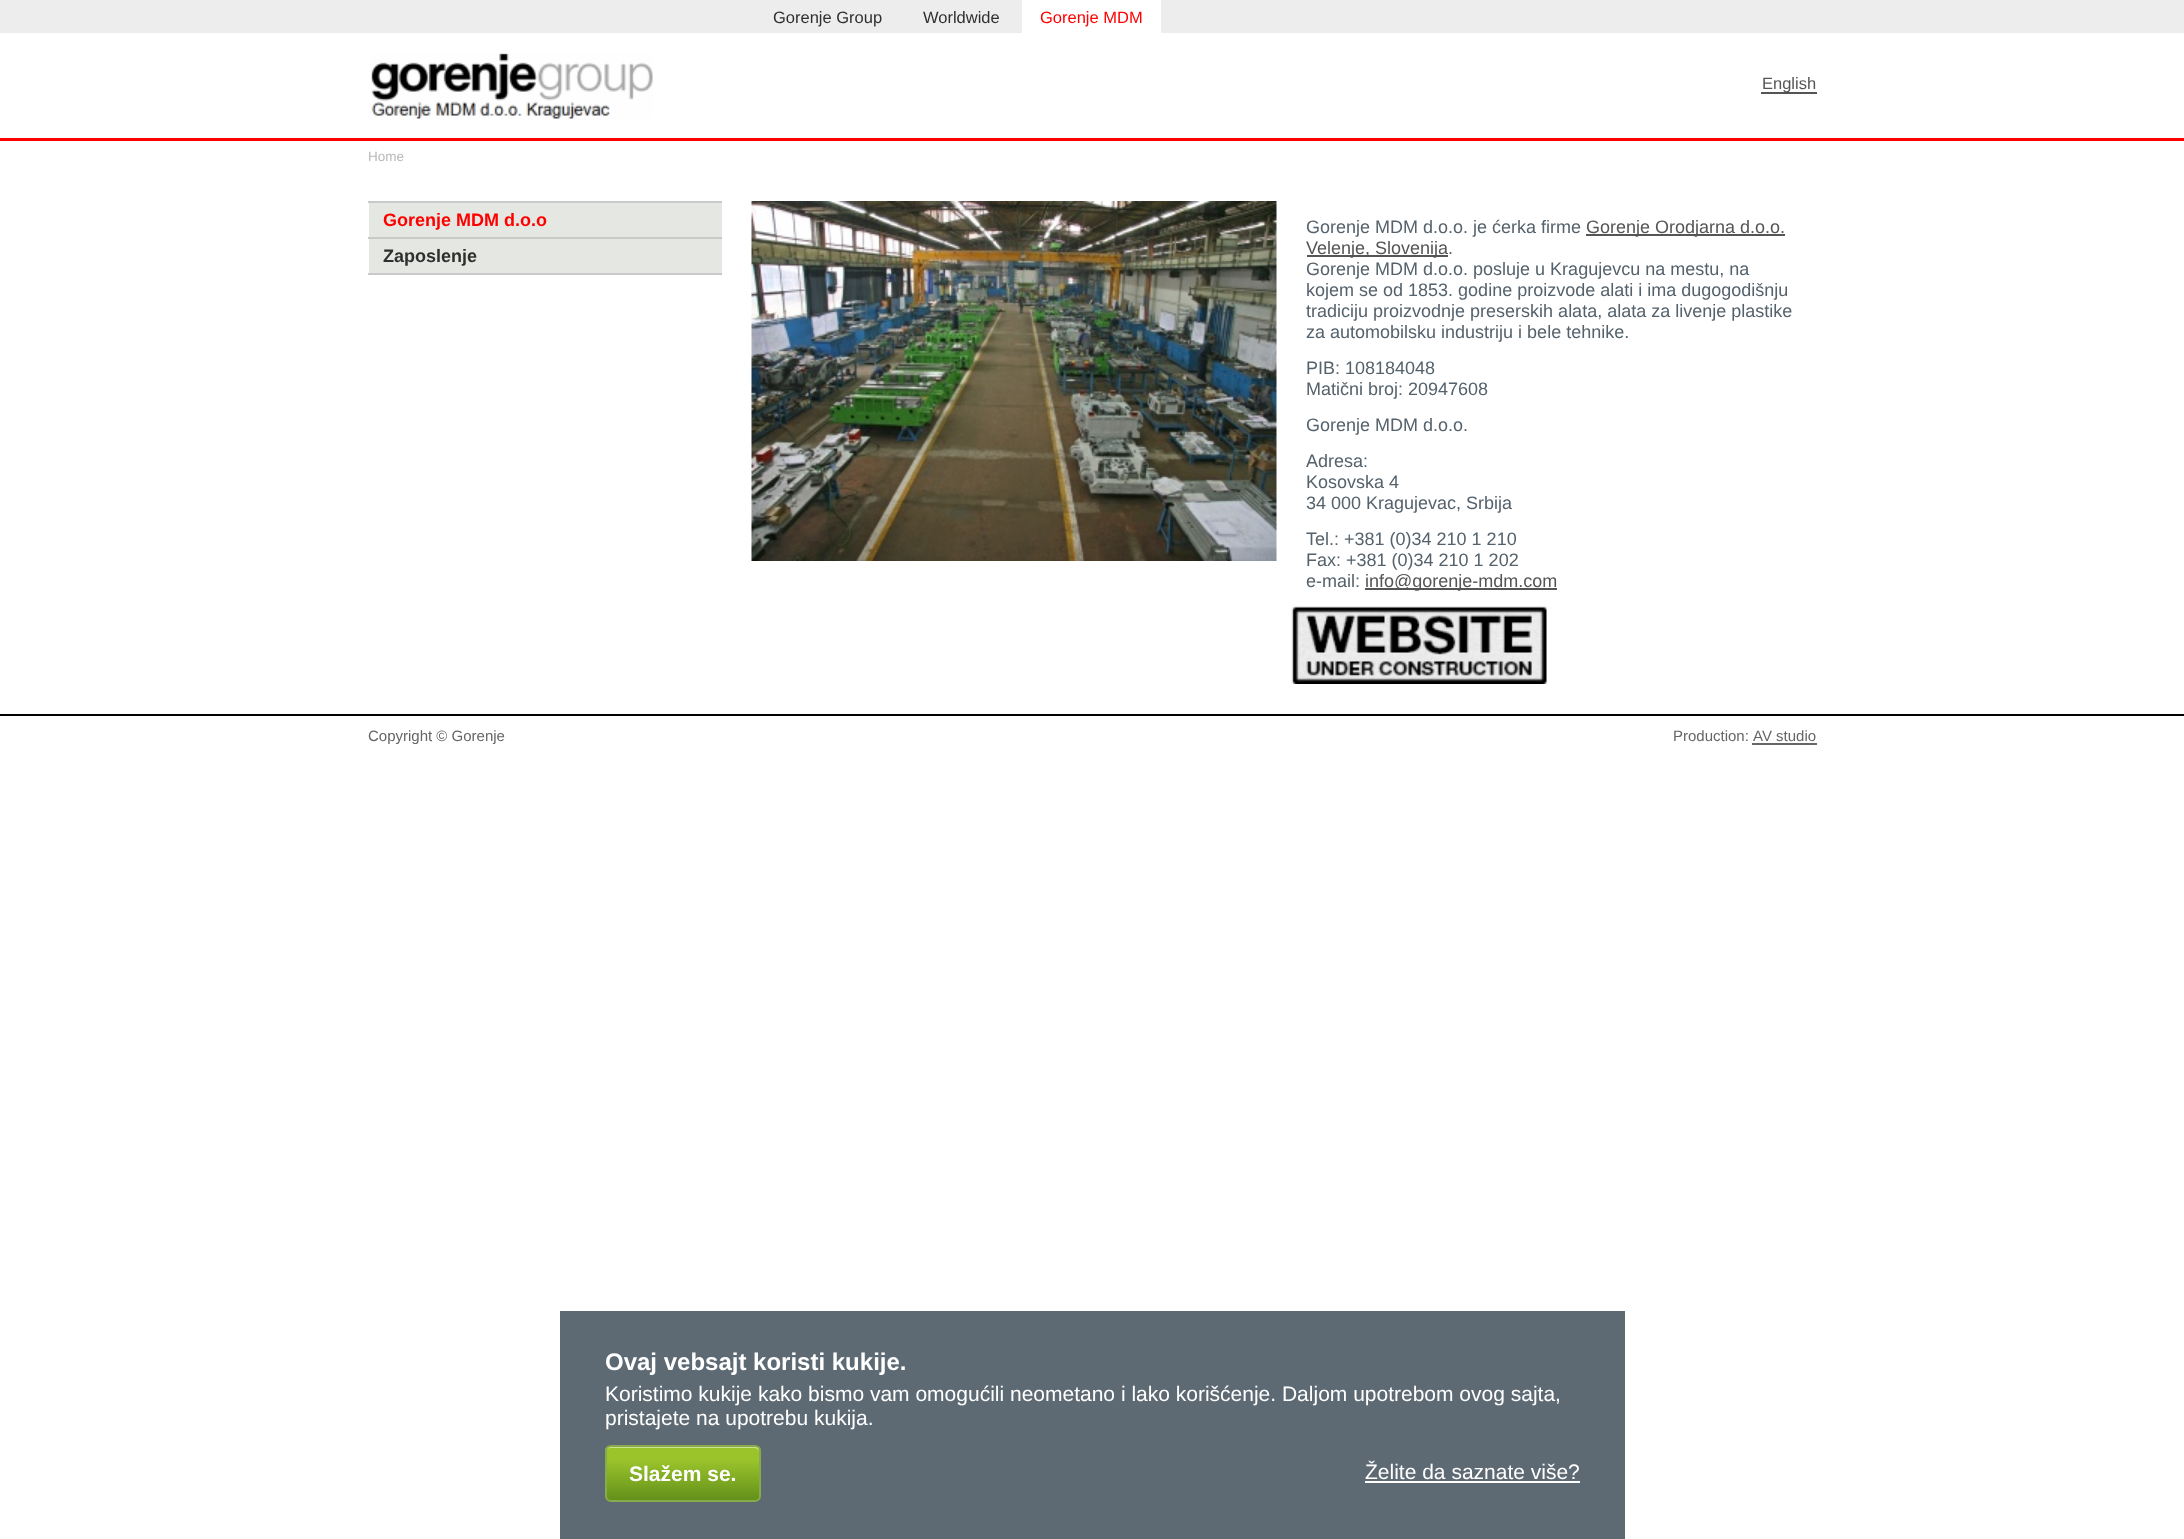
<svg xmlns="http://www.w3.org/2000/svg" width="2184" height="1539">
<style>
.a{font:16.5px Liberation Sans;fill:#2f2f2f}
.b{font:16.5px Liberation Sans;fill:#f00}
.c{font:16.5px Liberation Sans;fill:#555}
.d{font:13.5px Liberation Sans;fill:#b9b9b9}
.e{font:bold 18px Liberation Sans;fill:#f00}
.f{font:bold 18px Liberation Sans;fill:#2f2f2f}
.g{font:18px Liberation Sans;fill:#55626c}
.h{font:18px Liberation Sans;fill:#555}
.i{font:15px Liberation Sans;fill:#666}
.j{font:bold 24px Liberation Sans;fill:#fff}
.k{font:21px Liberation Sans;fill:#fff}
.l{font:bold 21px Liberation Sans;fill:#fff}
</style>
<defs>
<clipPath id="clip1"><rect x="605" y="1445" width="156" height="57" rx="6"/></clipPath>
<linearGradient id="g1" gradientUnits="userSpaceOnUse" x1="683" y1="1446" x2="683" y2="1500"><stop offset="0.25" stop-color="#9bc42b"/><stop offset="1" stop-color="#63911b"/></linearGradient>
</defs>
<rect width="100%" height="100%" fill="#fff"/>
<path fill="#f00" d="M0 138h2184v3H0z"/>
<path fill="#ededed" d="M0 0h2184v33H0z"/>
<path fill="#fff" d="M1022 0h139v33H1022z"/>
<image href="1.png" x="371" y="53" width="282" height="66"/>
<path fill="#555" d="M1761 92h56v2H1761z"/>
<path fill="#e5e7e2" d="M369 203h353v34H369z"/>
<path fill="#c9c9c9" d="M368 201h354v2H368z"/>
<path fill="#e5e7e2" d="M369 239h353v34H369z"/>
<path fill="#c9c9c9" d="M368 237h354v2H368z"/>
<path fill="#c9c9c9" d="M368 273h354v2H368z"/>
<image href="2.png" x="751" y="201" width="526" height="360"/>
<path fill="#555" d="M1586 234h199v2H1586z"/>
<path fill="#555" d="M1307 255h141v2H1307z"/>
<path fill="#555" d="M1365 588h192v2H1365z"/>
<image href="3.png" x="1291" y="606" width="256" height="78"/>
<path fill="#000" d="M0 714h2184v2H0z"/>
<path fill="#666" d="M1752 743h65v2H1752z"/>
<path fill="#5e6a73" d="M560 1311h1065v228H560z"/>
<g clip-path="url(#clip1)">
<path fill="url(#g1)" d="M605 1446h156v54H605z"/>
</g>
<path fill="#cde295" d="M610 1448h144c3 0 5 2 5 4v-1c0-3-2-5-5-5h-143c-3 0-5 2-5 5v1c0-2 2-4 4-4z"/>
<rect fill="none" stroke="#87aa4a" stroke-width="2" x="606" y="1446" width="154" height="55" rx="5"/>
<path fill="#fff" d="M1365 1481h215v2H1365z"/>
<text class="a" x="773" y="23">Gorenje Group</text>
<text class="a" x="923" y="23">Worldwide</text>
<text class="b" x="1040" y="23">Gorenje MDM</text>
<text class="c" x="1762" y="89">English</text>
<text class="d" x="368" y="161">Home</text>
<text class="e" x="383" y="226">Gorenje MDM d.o.o</text>
<text class="f" x="383" y="262">Zaposlenje</text>
<text class="g" x="1306" y="233">Gorenje MDM d.o.o. je ćerka firme</text>
<text class="h" x="1586" y="233">Gorenje Orodjarna d.o.o.</text>
<text class="h" x="1306" y="254">Velenje, Slovenija</text>
<text class="g" x="1448" y="254">.</text>
<text class="g" x="1306" y="275">Gorenje MDM d.o.o. posluje u Kragujevcu na mestu, na</text>
<text class="g" x="1306" y="296">kojem se od 1853. godine proizvode alati i ima dugogodišnju</text>
<text class="g" x="1306" y="317">tradiciju proizvodnje preserskih alata, alata za livenje plastike</text>
<text class="g" x="1306" y="338">za automobilsku industriju i bele tehnike.</text>
<text class="g" x="1306" y="374">PIB: 108184048</text>
<text class="g" x="1306" y="395">Matični broj: 20947608</text>
<text class="g" x="1306" y="431">Gorenje MDM d.o.o.</text>
<text class="g" x="1306" y="467">Adresa:</text>
<text class="g" x="1306" y="488">Kosovska 4</text>
<text class="g" x="1306" y="509">34 000 Kragujevac, Srbija</text>
<text class="g" x="1306" y="545">Tel.: +381 (0)34 210 1 210</text>
<text class="g" x="1306" y="566">Fax: +381 (0)34 210 1 202</text>
<text class="g" x="1306" y="587">e-mail:</text>
<text class="h" x="1365" y="587">info@gorenje-mdm.com</text>
<text class="i" x="368" y="741">Copyright © Gorenje</text>
<text class="i" x="1673" y="741">Production:</text>
<text class="i" x="1753" y="741">AV studio</text>
<text class="j" x="605" y="1370">Ovaj vebsajt koristi kukije.</text>
<text class="k" x="605" y="1401">Koristimo kukije kako bismo vam omogućili neometano i lako korišćenje. Daljom upotrebom ovog sajta,</text>
<text class="k" x="605" y="1425">pristajete na upotrebu kukija.</text>
<text class="l" x="629" y="1481">Slažem se.</text>
<text class="k" x="1365" y="1479">Želite da saznate više?</text>
</svg>
